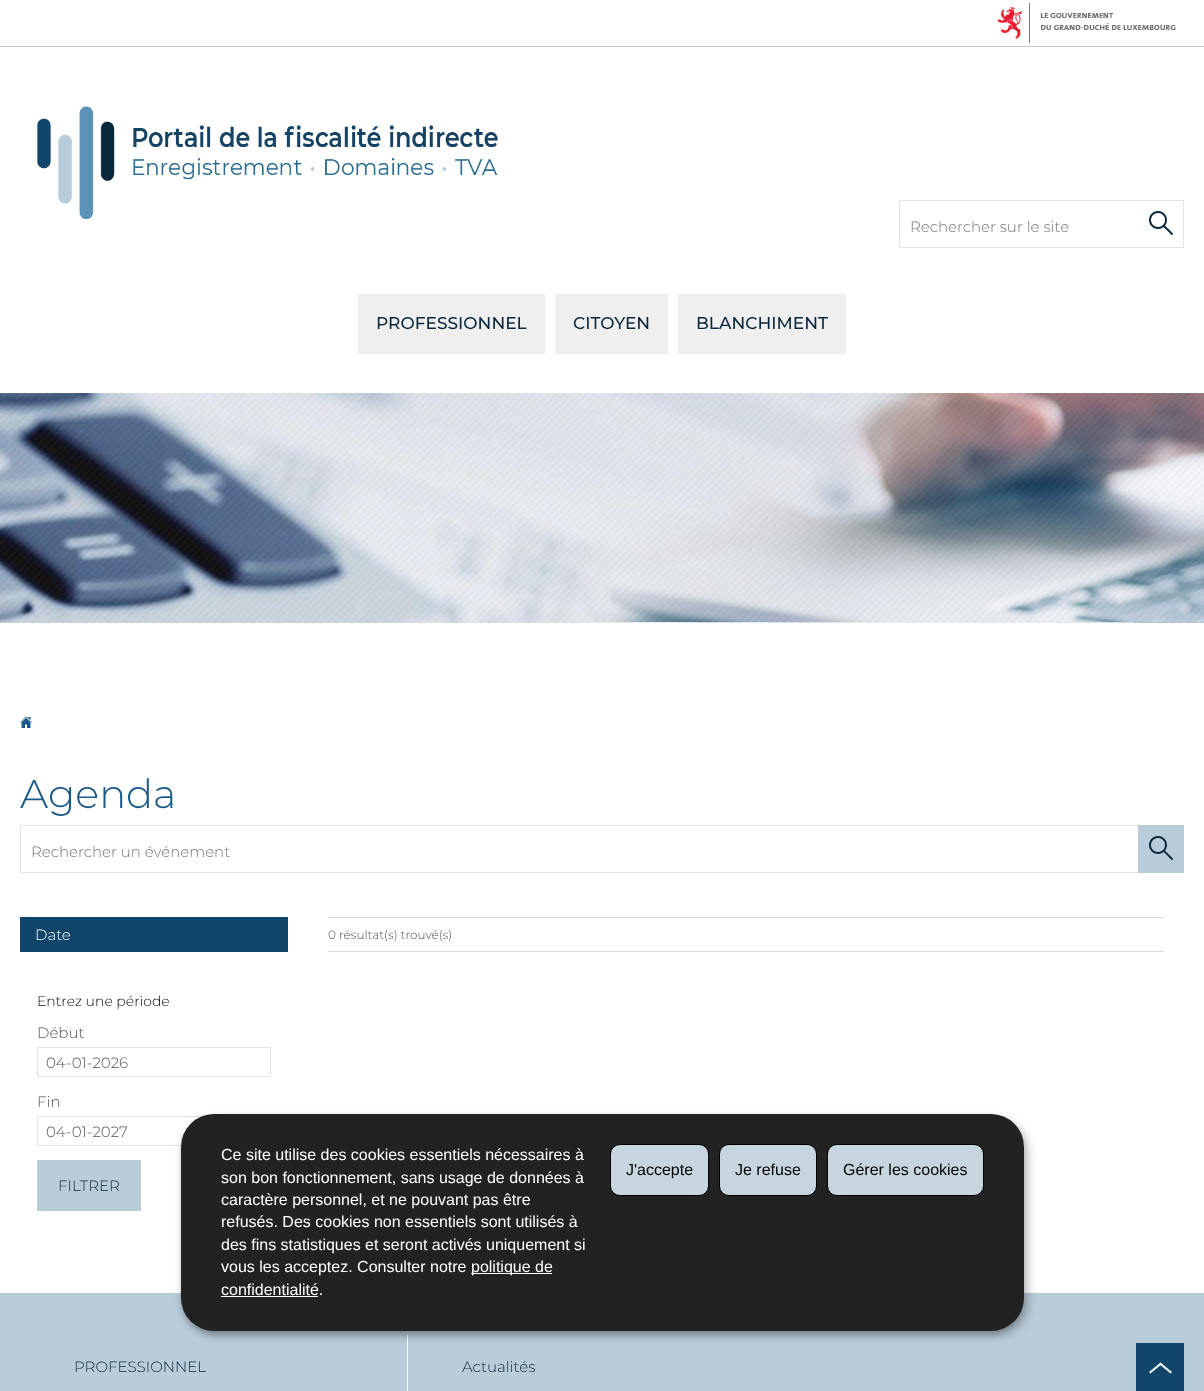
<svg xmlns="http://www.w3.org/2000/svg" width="1204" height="1391">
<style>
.a{font:300 15px Montserrat;fill:#757575}
.b{font:500 17px Montserrat;fill:#0a283d}
.c{font:300 40px Montserrat;fill:#175887}
.d{font:300 15px Montserrat;fill:#fff}
.e{font:300 14px Montserrat;fill:#000}
.f{font:300 15px Montserrat;fill:#515455}
.g{font:300 15px Montserrat;fill:#0a283d}
.h{font:300 12px Montserrat;fill:#4d4e50}
.i{font:16px Liberation Sans;fill:#fff}
.j{font:16px Liberation Sans;fill:#000}
</style>
<rect width="100%" height="100%" fill="#fff"/>
<path fill="#cccaca" d="M0 46h1204v1H0z"/>
<image href="1.png" x="997" y="3" width="179" height="40"/>
<image href="2.png" x="37" y="106" width="461" height="113"/>
<path fill="none" stroke="#e2e2e4" d="M899.5 200.5h284v47H899.5z"/>
<image href="3.png" x="1149" y="211" width="24" height="24"/>
<path fill="#efefef" d="M358 294h187v60H358z"/>
<path fill="#efefef" d="M555 294h113v60H555z"/>
<path fill="#efefef" d="M678 294h168v60H678z"/>
<image href="4.png" x="0" y="393" width="1204" height="230"/>
<image href="5.png" x="20" y="716" width="12" height="12"/>
<path fill="none" stroke="#e2e2e4" d="M20.5 825.5h1163v47H20.5z"/>
<path fill="#b9ccda" d="M1138 825h46v48H1138z"/>
<image href="6.png" x="1149" y="836" width="24" height="24"/>
<path fill="#12456a" d="M20 917h268v35H20z"/>
<path fill="none" stroke="#e2e2e4" d="M37.5 1047.5h233v29H37.5z"/>
<path fill="none" stroke="#e2e2e4" d="M37.5 1116.5h233v29H37.5z"/>
<path fill="#b9ccda" d="M37 1160h104v51H37z"/>
<path fill="#ddd" d="M328 917h836v1H328z"/>
<path fill="#ddd" d="M328 951h836v1H328z"/>
<path fill="#b9ccda" d="M0 1293h1204v98H0z"/>
<path fill="#fff" d="M407 1335h1v56H407z"/>
<path fill="#12456a" d="M1136 1343h48v48H1136z"/>
<path fill="#e9f2f8" d="M1149 1372l11.5-9.5l1.5 1.5l-11.5 9.5z"/>
<path fill="#e9f2f8" d="M1160.5 1362.5l11.5 9.5l-1.5 1.5l-11.5-9.5z"/>
<rect fill="#00000030" filter="blur(5px)" x="186" y="1119" width="843" height="217" rx="33"/>
<rect fill="#00000033" filter="blur(3px)" x="181" y="1118" width="843" height="217" rx="33"/>
<rect fill="#222" x="181" y="1114" width="843" height="217" rx="33"/>
<path fill="#fff" d="M471 1273h81v1H471z"/>
<path fill="#fff" d="M221 1296h97v1H221z"/>
<rect fill="#c6d5de" stroke="#000" x="610.5" y="1144.5" width="98" height="51" rx="9.5"/>
<rect fill="#c6d5de" stroke="#000" x="719.5" y="1144.5" width="97" height="51" rx="9.5"/>
<rect fill="#c6d5de" stroke="#000" x="827.5" y="1144.5" width="156" height="51" rx="9.5"/>
<text class="a" x="910" y="232">Rechercher sur le site</text>
<text class="b" x="376" y="329">PROFESSIONNEL</text>
<text class="b" x="573" y="329">CITOYEN</text>
<text class="b" x="696" y="329">BLANCHIMENT</text>
<text class="c" x="20" y="808">Agenda</text>
<text class="a" x="31" y="857">Rechercher un événement</text>
<text class="d" x="35" y="940">Date</text>
<text class="e" x="37" y="1006">Entrez une période</text>
<text class="f" x="37" y="1038">Début</text>
<text class="f" x="46" y="1068">04-01-2026</text>
<text class="f" x="37" y="1107">Fin</text>
<text class="f" x="46" y="1137">04-01-2027</text>
<text class="g" x="58" y="1191">FILTRER</text>
<text class="h" x="328" y="939">0 résultat(s) trouvé(s)</text>
<text class="g" x="74" y="1372">PROFESSIONNEL</text>
<text class="g" x="462" y="1372">Actualités</text>
<text class="i" x="221" y="1160">Ce site utilise des cookies essentiels nécessaires à</text>
<text class="i" x="221" y="1183">son bon fonctionnement, sans usage de données à</text>
<text class="i" x="221" y="1205">caractère personnel, et ne pouvant pas être</text>
<text class="i" x="221" y="1227">refusés. Des cookies non essentiels sont utilisés à</text>
<text class="i" x="221" y="1250">des fins statistiques et seront activés uniquement si</text>
<text class="i" x="221" y="1272">vous les acceptez. Consulter notre</text>
<text class="i" x="471" y="1272">politique de</text>
<text class="i" x="221" y="1295">confidentialité.</text>
<text class="j" x="626" y="1175">J'accepte</text>
<text class="j" x="735" y="1175">Je refuse</text>
<text class="j" x="843" y="1175">Gérer les cookies</text>
</svg>
